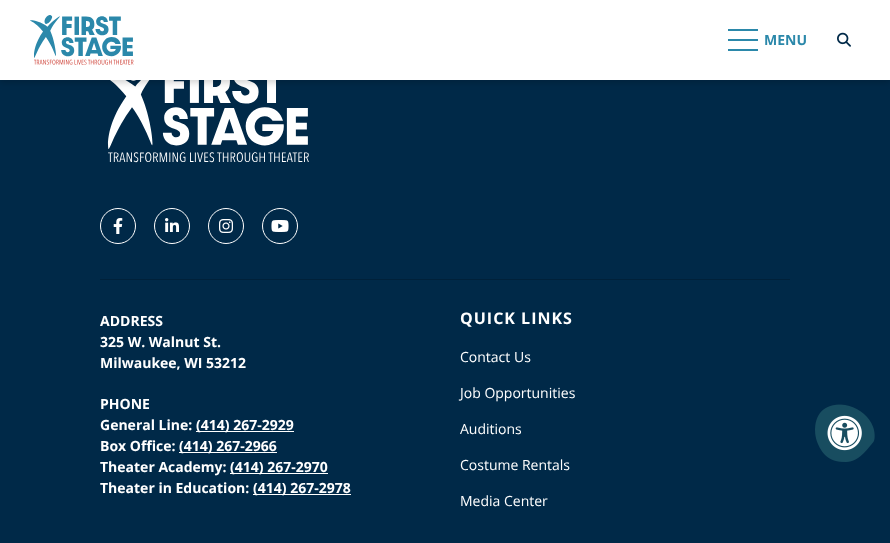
<svg xmlns="http://www.w3.org/2000/svg" width="890" height="543">
<style>
.a{font:bold 14px Open Sans;fill:#2b88aa}
.b{font:bold 14px Open Sans;fill:#fff}
.c{font:bold 16px Open Sans;letter-spacing:1px;fill:#fff}
.d{font:14px Open Sans;fill:#fff}
</style>
<rect width="100%" height="100%" fill="#002948"/>
<image href="4.png" x="107" y="80" width="202" height="83"/>
<path fill="#00000029" filter="blur(3px)" d="M0 3h890v80H0z"/>
<path fill="#fff" d="M0 0h890v80H0z"/>
<image href="1.png" x="30" y="15" width="104" height="50"/>
<path fill="#2b88aa" d="M728 29h30v2H728z"/>
<path fill="#2b88aa" d="M728 39h30v2H728z"/>
<path fill="#2b88aa" d="M728 49h30v2H728z"/>
<image href="2.png" x="837" y="32" width="14" height="15"/>
<image href="3.png" x="815" y="404" width="60" height="58"/>
<path fill="#00213a" d="M100 279h690v1H100z"/>
<circle fill="none" stroke="#fff" cx="118" cy="226" r="17.5"/>
<image href="5.png" x="113" y="218" width="10" height="16"/>
<circle fill="none" stroke="#fff" cx="172" cy="226" r="17.5"/>
<image href="6.png" x="165" y="218" width="14" height="14"/>
<circle fill="none" stroke="#fff" cx="226" cy="226" r="17.5"/>
<image href="7.png" x="219" y="219" width="14" height="14"/>
<circle fill="none" stroke="#fff" cx="280" cy="226" r="17.5"/>
<image href="8.png" x="271" y="220" width="18" height="12"/>
<path fill="#fff" d="M196 431h98v1H196z"/>
<path fill="#fff" d="M179 452h98v1H179z"/>
<path fill="#fff" d="M230 473h98v1H230z"/>
<path fill="#fff" d="M253 494h98v1H253z"/>
<text class="a" x="764" y="45">MENU</text>
<text class="b" x="100" y="326">ADDRESS</text>
<text class="b" x="100" y="347">325 W. Walnut St.</text>
<text class="b" x="100" y="368">Milwaukee, WI 53212</text>
<text class="b" x="100" y="409">PHONE</text>
<text class="b" x="100" y="430">General Line:</text>
<text class="b" x="196" y="430">(414) 267-2929</text>
<text class="b" x="100" y="451">Box Office:</text>
<text class="b" x="179" y="451">(414) 267-2966</text>
<text class="b" x="100" y="472">Theater Academy:</text>
<text class="b" x="230" y="472">(414) 267-2970</text>
<text class="b" x="100" y="493">Theater in Education:</text>
<text class="b" x="253" y="493">(414) 267-2978</text>
<text class="c" x="460" y="324">QUICK LINKS</text>
<text class="d" x="460" y="362">Contact Us</text>
<text class="d" x="460" y="398">Job Opportunities</text>
<text class="d" x="460" y="434">Auditions</text>
<text class="d" x="460" y="470">Costume Rentals</text>
<text class="d" x="460" y="506">Media Center</text>
</svg>
